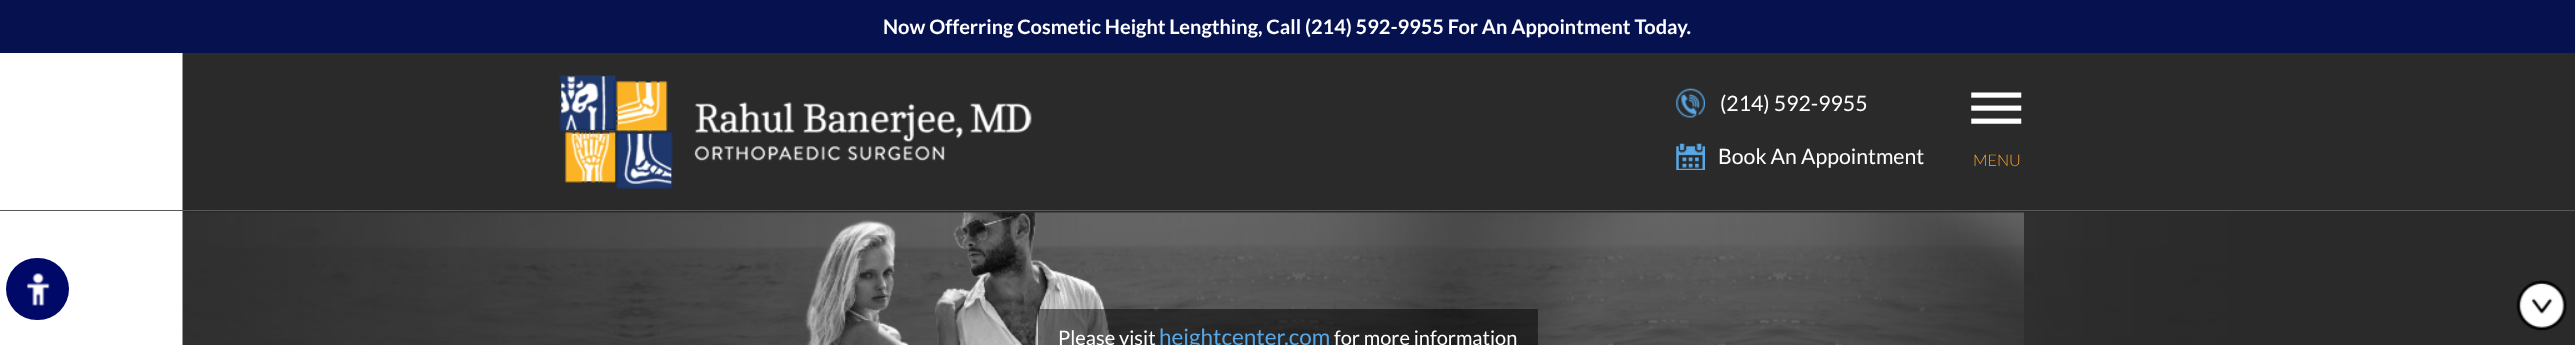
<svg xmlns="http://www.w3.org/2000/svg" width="2575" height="345">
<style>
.a{font:bold 20px Lato;fill:#fff}
.b{font:21.25px Lato;fill:#fff}
.c{font:300 16px Lato;fill:#ffa32b}
.d{font:20px Lato;fill:#fff}
.e{font:22.5px Lato;fill:#59a8e5}
</style>
<rect width="100%" height="100%" fill="#fff"/>
<rect fill="#000968" x="6" y="258" width="63" height="62" rx="31"/>
<image href="1.png" x="27" y="273" width="23" height="33"/>
<image href="6.png" x="551" y="53" width="1473" height="292"/>
<image href="7.png" x="182" y="53" width="369" height="292"/>
<image href="8.png" x="2024" y="53" width="551" height="292"/>
<path fill="#585858" d="M0 210h2575v1H0z"/>
<path fill="#061150" d="M0 0h2575v53H0z"/>
<image href="2.png" x="558" y="75" width="474" height="114"/>
<image href="3.png" x="1676" y="88" width="29" height="30"/>
<image href="4.png" x="1676" y="143" width="29" height="27"/>
<image href="5.png" x="1971" y="92" width="51" height="32"/>
<path fill="#00000080" d="M1038 309h500v36H1038z"/>
<image href="9.png" x="2516" y="280" width="51" height="51"/>
<text class="a" x="883" y="34">Now Offerring Cosmetic Height Lengthing, Call (214) 592-9955 For An Appointment Today.</text>
<text class="b" x="1720" y="111">(214) 592-9955</text>
<text class="b" x="1718" y="164">Book An Appointment</text>
<text class="c" x="1973" y="166">MENU</text>
<text class="d" x="1058" y="345">Please visit</text>
<text class="e" x="1159" y="345">heightcenter.com</text>
<text class="d" x="1334" y="345">for more information</text>
</svg>
